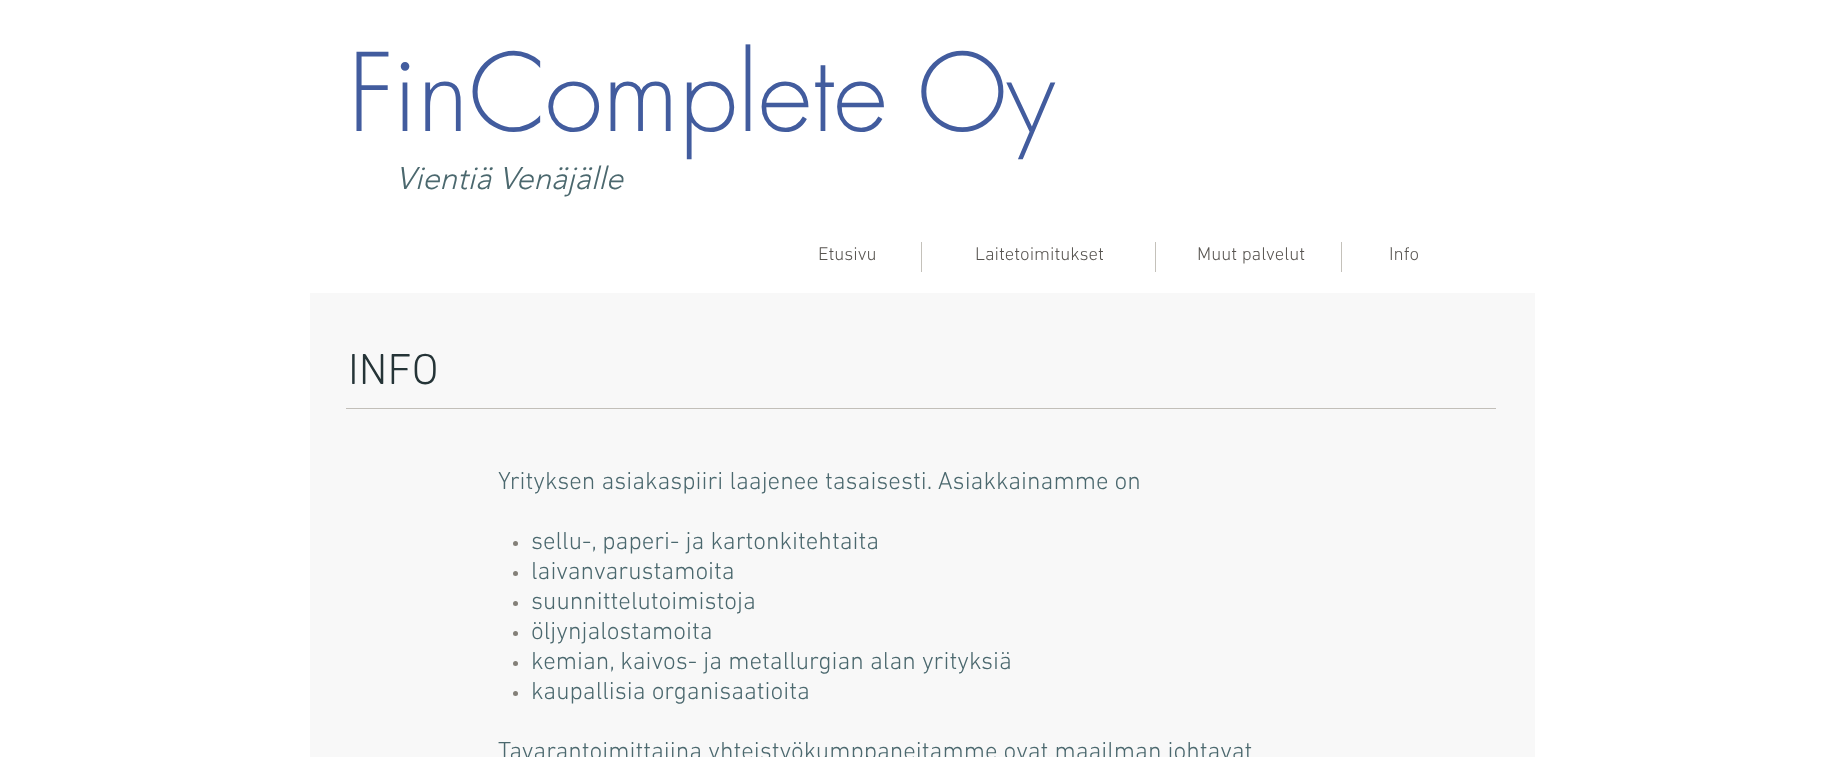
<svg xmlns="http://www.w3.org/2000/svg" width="1844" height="757">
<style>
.a{font:300 105px futura;fill:#425c9e}
.b{font:italic 300 31.25px 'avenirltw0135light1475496';fill:#4b686e}
.c{font:300 18.75px 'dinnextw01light';fill:#585551}
.d{font:300 44px 'dinnextw01light';fill:#253437}
.e{font:300 25px 'dinnextw01light';fill:#4b686e}
</style>
<rect width="100%" height="100%" fill="#fff"/>
<path fill="#c4c1ba" d="M921 242h1v30H921z"/>
<path fill="#c4c1ba" d="M1155 242h1v30H1155z"/>
<path fill="#c4c1ba" d="M1341 242h1v30H1341z"/>
<path fill="#f8f8f8" d="M310 293h1225v464H310z"/>
<path fill="#c2bfb9" d="M346 408h1150v1H346z"/>
<circle fill="#848079" cx="515.5" cy="543.5" r="2.5"/>
<circle fill="#848079" cx="515.5" cy="573.5" r="2.5"/>
<circle fill="#848079" cx="515.5" cy="603.5" r="2.5"/>
<circle fill="#848079" cx="515.5" cy="633.5" r="2.5"/>
<circle fill="#848079" cx="515.5" cy="663.5" r="2.5"/>
<circle fill="#848079" cx="515.5" cy="693.5" r="2.5"/>
<text class="a" x="348" y="131">FinComplete Oy</text>
<text class="b" x="396" y="189">Vientiä Venäjälle</text>
<text class="c" x="818" y="260">Etusivu</text>
<text class="c" x="975" y="260">Laitetoimitukset</text>
<text class="c" x="1197" y="260">Muut palvelut</text>
<text class="c" x="1389" y="260">Info</text>
<text class="d" x="348" y="384">INFO</text>
<text class="e" x="498" y="489">Yrityksen asiakaspiiri laajenee tasaisesti. Asiakkainamme on</text>
<text class="e" x="531" y="549">sellu-, paperi- ja kartonkitehtaita</text>
<text class="e" x="531" y="579">laivanvarustamoita</text>
<text class="e" x="531" y="609">suunnittelutoimistoja</text>
<text class="e" x="531" y="639">öljynjalostamoita</text>
<text class="e" x="531" y="669">kemian, kaivos- ja metallurgian alan yrityksiä</text>
<text class="e" x="531" y="699">kaupallisia organisaatioita</text>
<text class="e" x="498" y="759">Tavarantoimittajina yhteistyökumppaneitamme ovat maailman johtavat</text>
</svg>
